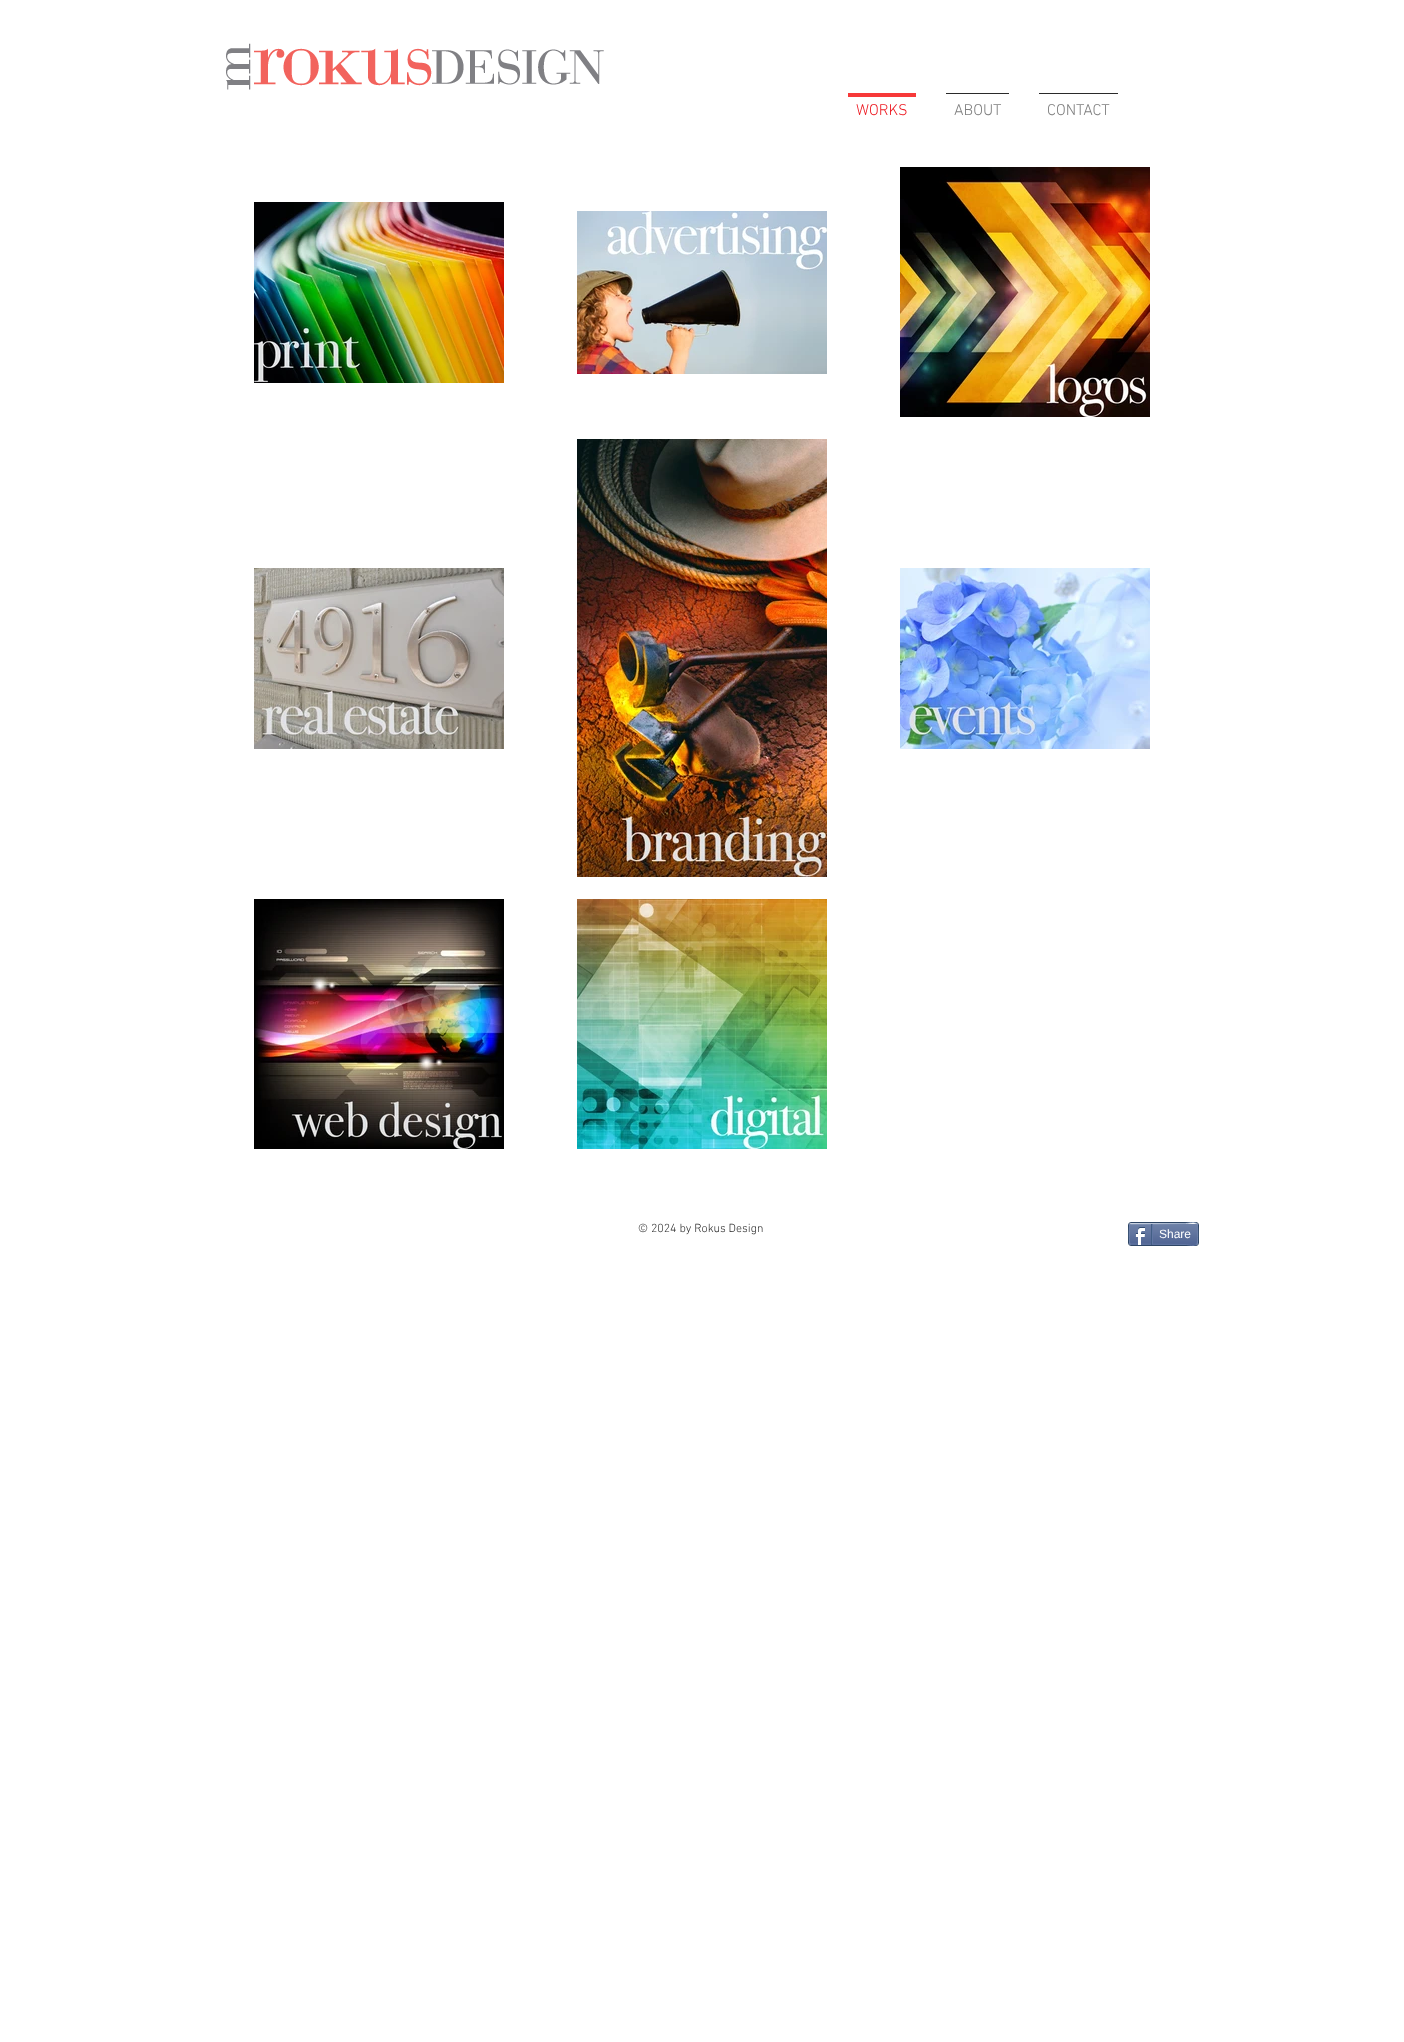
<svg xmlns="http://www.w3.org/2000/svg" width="1404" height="2042">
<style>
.a{font:300 16px 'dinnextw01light';fill:#ed1c24}
.b{font:300 16px 'dinnextw01light';fill:#808080}
.c{font:300 12px 'dinnextw01light';fill:#2a2a2a}
.d{font:12px Liberation Sans;fill:#fff}
</style>
<rect width="100%" height="100%" fill="#fff"/>
<image href="1.png" x="226" y="43" width="378" height="47"/>
<path fill="#f73939" d="M848 93h68v4H848z"/>
<path fill="#2a2a2a" d="M946 93h63v1H946z"/>
<path fill="#2a2a2a" d="M1039 93h79v1H1039z"/>
<image href="2.png" x="254" y="202" width="250" height="181"/>
<image href="3.png" x="577" y="211" width="250" height="163"/>
<image href="4.png" x="900" y="167" width="250" height="250"/>
<image href="5.png" x="254" y="568" width="250" height="181"/>
<image href="6.png" x="577" y="439" width="250" height="438"/>
<image href="7.png" x="900" y="568" width="250" height="181"/>
<image href="8.png" x="254" y="899" width="250" height="250"/>
<image href="9.png" x="577" y="899" width="250" height="250"/>
<rect fill="none" stroke="#2d4565" x="1128.5" y="1222.5" width="70" height="23" rx="2.5"/>
<image href="10.png" x="1129" y="1224" width="69" height="21"/>
<path fill="none" stroke="#9aabc6" d="M1130 1224l55-.5c4 0 9-2.5 12 .5"/>
<path fill="none" stroke="#6f83ad" d="M1197 1224c1 .5 1 19.5 0 20"/>
<path fill="none" stroke="#6176a3" d="M1197 1244c-3 3-8 .5-12 .5l-55-.5"/>
<path fill="none" stroke="#6f83ad" d="M1130 1244c-1-.5-1-19.5 0-20"/>
<image href="11.png" x="1135" y="1227" width="10" height="18"/>
<path fill="#425e85" d="M1151 1224h1v21H1151z"/>
<path fill="#6176a3" d="M1152 1224h1v20H1152z"/>
<text class="a" x="856" y="115">WORKS</text>
<text class="b" x="954" y="115">ABOUT</text>
<text class="b" x="1047" y="115">CONTACT</text>
<text class="c" x="638" y="1232">© 2024 by Rokus Design</text>
<text class="d" x="1159" y="1238">Share</text>
</svg>
